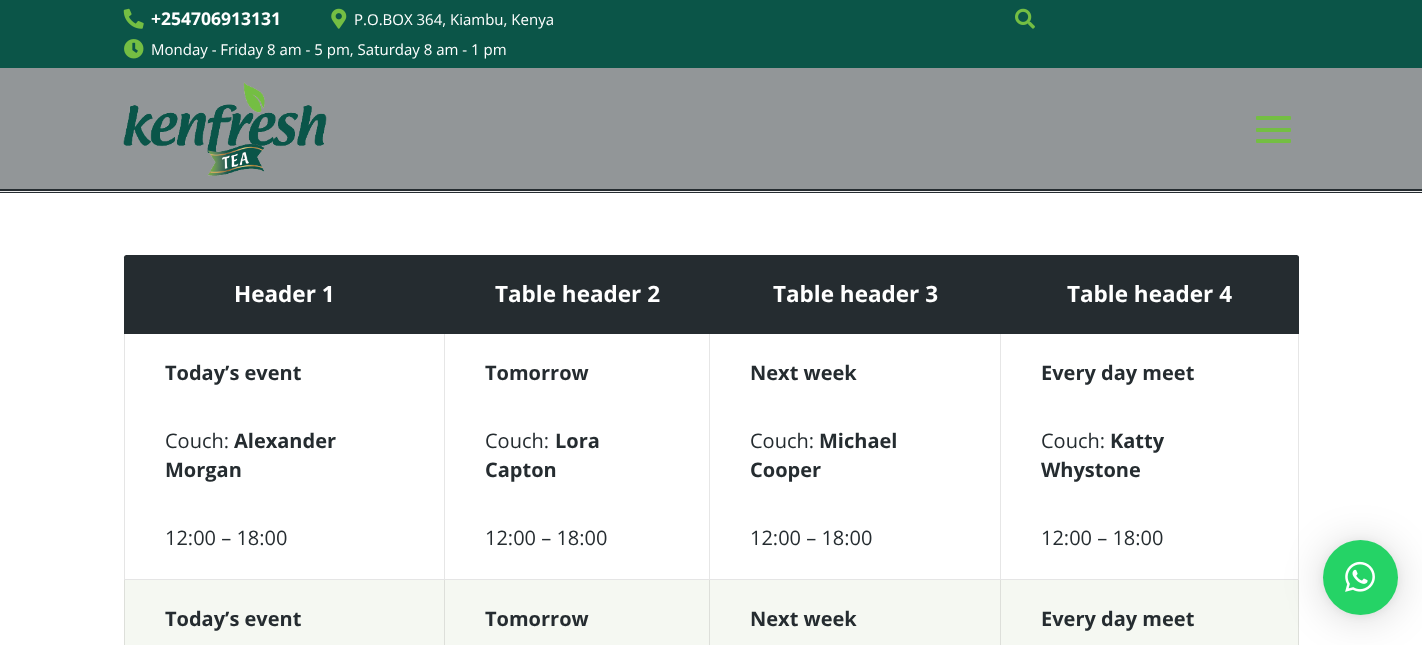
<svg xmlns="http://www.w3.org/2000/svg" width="1422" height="645">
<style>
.a{font:bold 17.5px Open Sans;fill:#fff}
.b{font:15px Open Sans;fill:#fff}
.c{font:bold 22.5px Open Sans;fill:#fff}
.d{font:bold 20px Open Sans;fill:#252c30}
.e{font:20px Open Sans;fill:#252c30}
</style>
<rect width="100%" height="100%" fill="#fff"/>
<path fill="#0b5548" d="M0 0h1422v68H0z"/>
<image href="1.png" x="123" y="8" width="21" height="21"/>
<image href="2.png" x="331" y="8" width="16" height="21"/>
<image href="3.png" x="124" y="39" width="20" height="20"/>
<image href="4.png" x="1015" y="8" width="20" height="21"/>
<path fill="#929698" d="M0 68h1422v121H0z"/>
<image href="5.png" x="123" y="82" width="204" height="94"/>
<rect fill="#74be43" x="1256" y="116" width="35" height="4" rx="1"/>
<rect fill="#74be43" x="1256" y="128" width="35" height="4" rx="1"/>
<rect fill="#74be43" x="1256" y="139" width="35" height="4" rx="1"/>
<path fill="#252c30" d="M0 189h1422v4H0z"/>
<path fill="#eee" d="M0 191h1422v1H0z"/>
<path fill="#252c30" d="M126.5 255h318.5v79h-321v-76.5c0-1.5 1-2.5 2.5-2.5z"/>
<path fill="#252c30" d="M445 255h556v79H445z"/>
<path fill="#252c30" d="M1001 255h295.5c1.5 0 2.5 1 2.5 2.5v76.5h-298z"/>
<path fill="#e6e6e6" d="M445 334v246l-1-1v-245z"/>
<path fill="#0000001a" d="M445 580h-321l1-1h319z"/>
<path fill="#0000001a" d="M124 580v-246h1v245z"/>
<path fill="#e6e6e6" d="M710 334v246l-1-1v-245z"/>
<path fill="#0000001a" d="M710 580h-265v-1h264z"/>
<path fill="#e6e6e6" d="M1001 334v246l-1-1v-245z"/>
<path fill="#0000001a" d="M1001 580h-291v-1h290z"/>
<path fill="#e6e6e6" d="M1299 334v246l-1-1v-245z"/>
<path fill="#0000001a" d="M1299 580h-298v-1h297z"/>
<path fill="#f5f8f2" d="M125 580h319v65H125z"/>
<path fill="#dddfda" d="M445 580v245l-1-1v-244z"/>
<path fill="#dddfda" d="M124 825v-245h1v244z"/>
<path fill="#f5f8f2" d="M445 580h264v65H445z"/>
<path fill="#dddfda" d="M710 580v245l-1-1v-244z"/>
<path fill="#f5f8f2" d="M710 580h290v65H710z"/>
<path fill="#dddfda" d="M1001 580v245l-1-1v-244z"/>
<path fill="#f5f8f2" d="M1001 580h297v65H1001z"/>
<path fill="#dddfda" d="M1299 580v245l-1-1v-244z"/>
<rect fill="#00000029" filter="blur(20px)" x="1323" y="543" width="75" height="75" rx="37.5"/>
<rect fill="#0000000f" filter="blur(4px)" x="1323" y="541" width="75" height="75" rx="37.5"/>
<circle fill="#25d366" cx="1360.5" cy="577.5" r="37.5"/>
<image href="6.png" x="1345" y="561" width="30" height="31"/>
<text class="a" x="151" y="25">+254706913131</text>
<text class="b" x="354" y="25">P.O.BOX 364, Kiambu, Kenya</text>
<text class="b" x="151" y="55">Monday - Friday 8 am - 5 pm, Saturday 8 am - 1 pm</text>
<text class="c" x="234" y="302">Header 1</text>
<text class="c" x="495" y="302">Table header 2</text>
<text class="c" x="773" y="302">Table header 3</text>
<text class="c" x="1067" y="302">Table header 4</text>
<text class="d" x="165" y="380">Today’s event</text>
<text class="e" x="165" y="448">Couch:</text>
<text class="d" x="234" y="448">Alexander</text>
<text class="d" x="165" y="477">Morgan</text>
<text class="e" x="165" y="545">12:00 – 18:00</text>
<text class="d" x="485" y="380">Tomorrow</text>
<text class="e" x="485" y="448">Couch:</text>
<text class="d" x="555" y="448">Lora</text>
<text class="d" x="485" y="477">Capton</text>
<text class="e" x="485" y="545">12:00 – 18:00</text>
<text class="d" x="750" y="380">Next week</text>
<text class="e" x="750" y="448">Couch:</text>
<text class="d" x="819" y="448">Michael</text>
<text class="d" x="750" y="477">Cooper</text>
<text class="e" x="750" y="545">12:00 – 18:00</text>
<text class="d" x="1041" y="380">Every day meet</text>
<text class="e" x="1041" y="448">Couch:</text>
<text class="d" x="1110" y="448">Katty</text>
<text class="d" x="1041" y="477">Whystone</text>
<text class="e" x="1041" y="545">12:00 – 18:00</text>
<text class="d" x="165" y="626">Today’s event</text>
<text class="d" x="485" y="626">Tomorrow</text>
<text class="d" x="750" y="626">Next week</text>
<text class="d" x="1041" y="626">Every day meet</text>
</svg>
